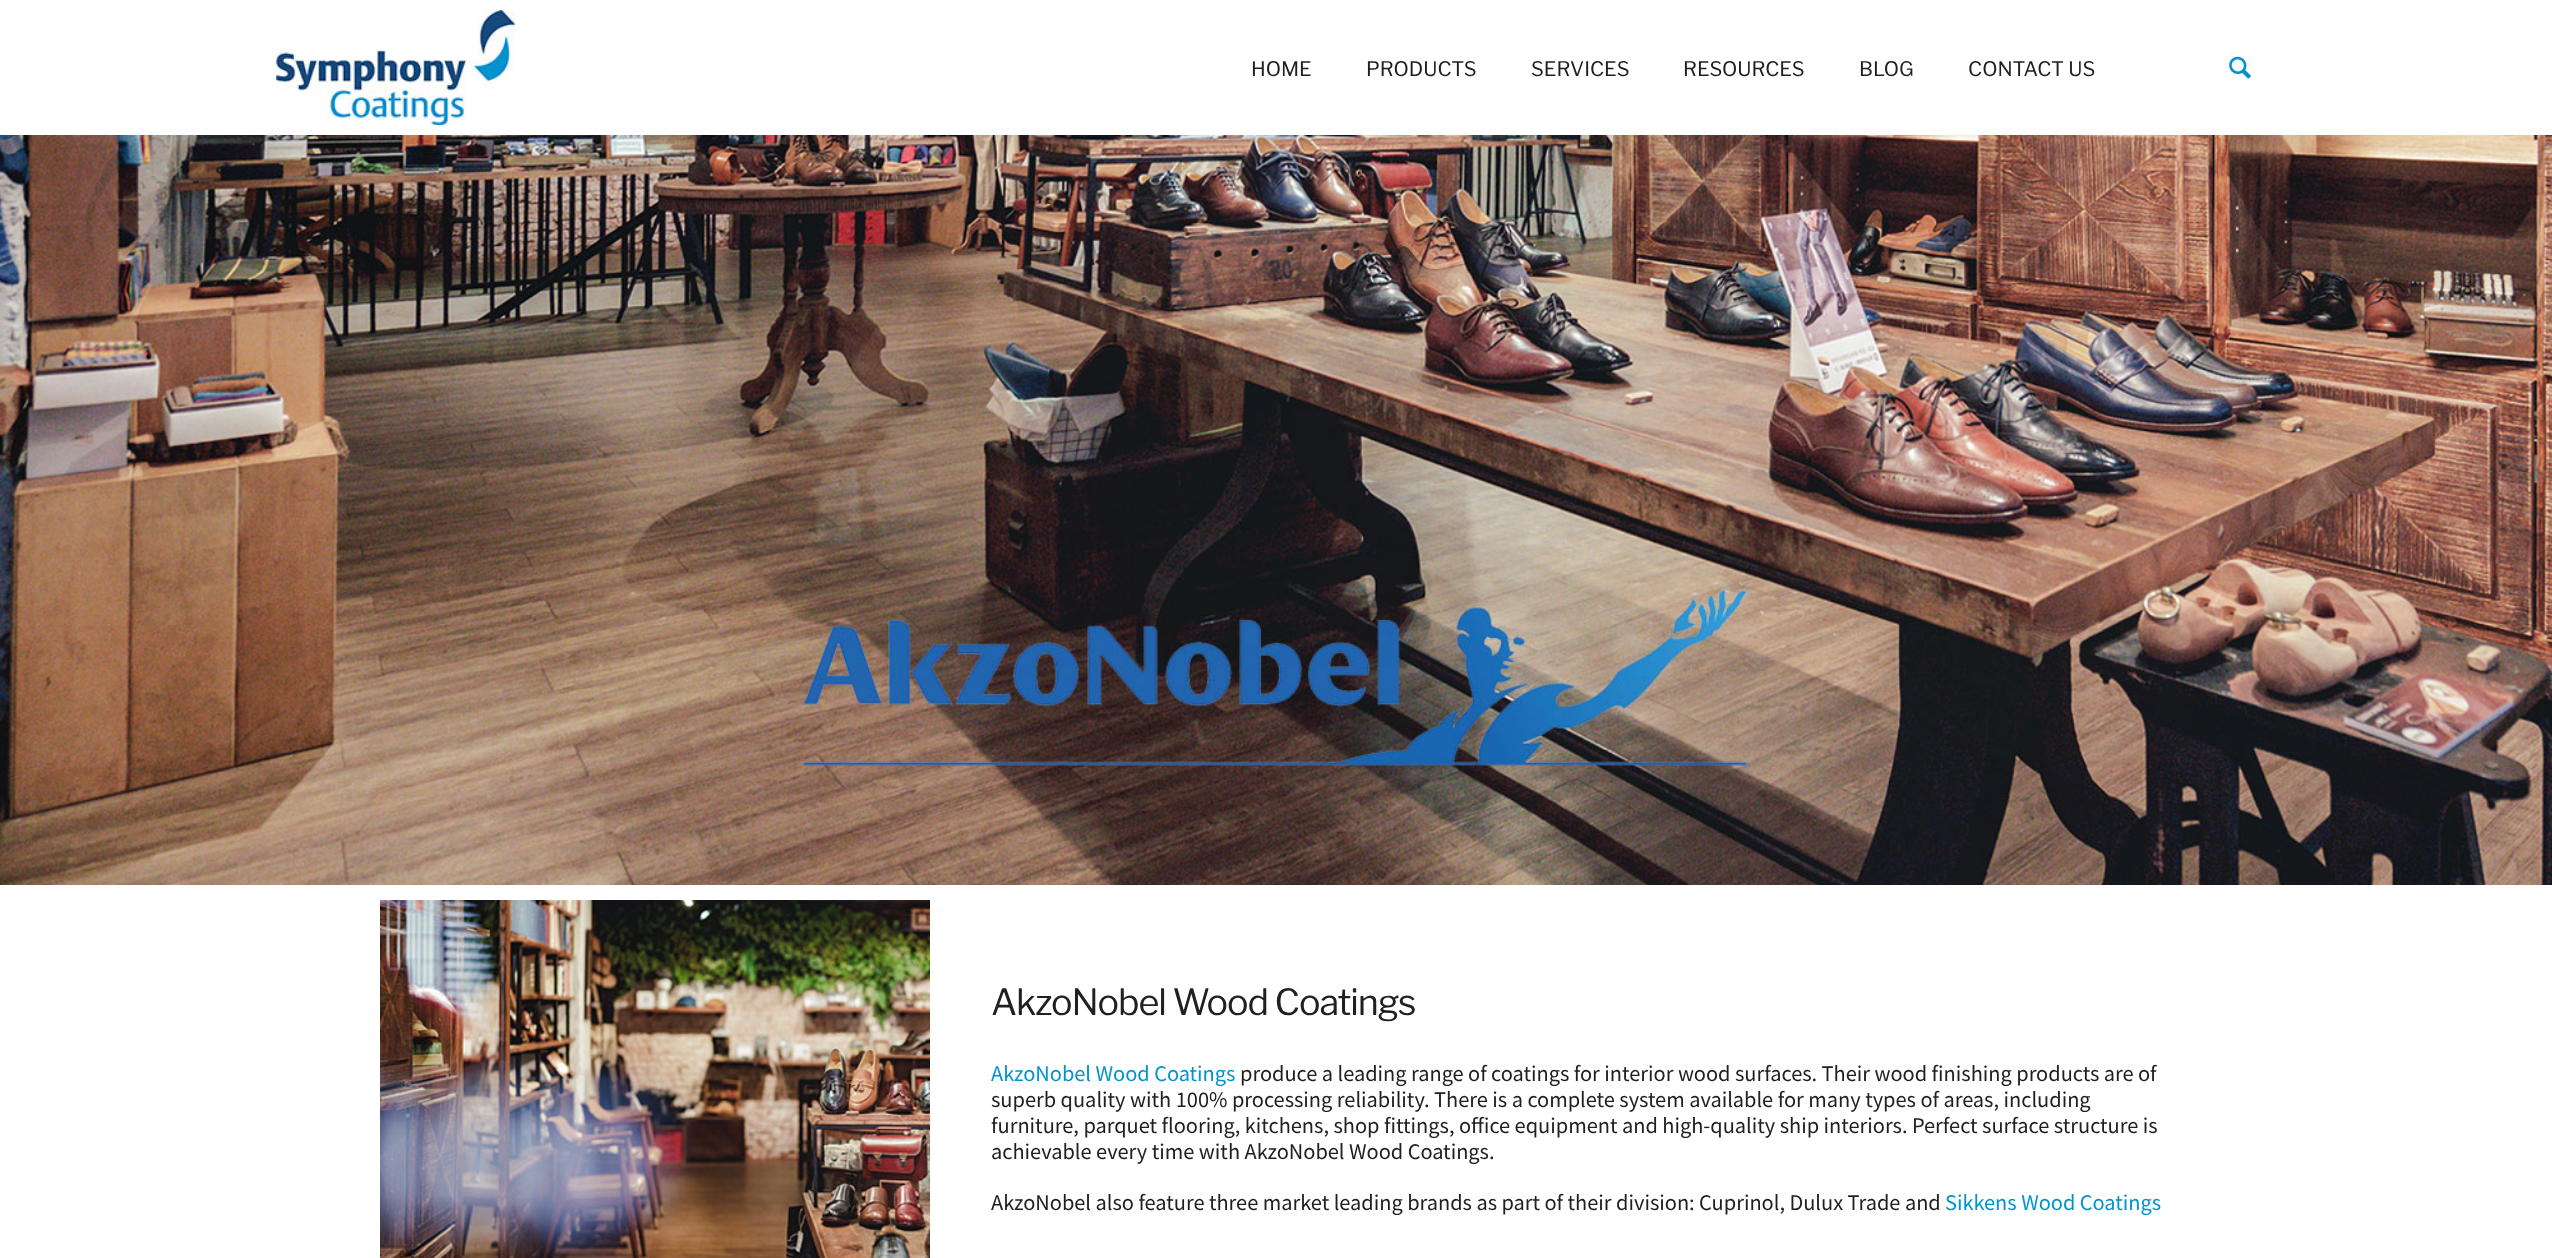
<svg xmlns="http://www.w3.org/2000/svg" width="2552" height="1258">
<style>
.a{font:20px Libre Franklin;fill:#202020}
.b{font:36px Libre Franklin;letter-spacing:-1.1px;fill:#202020}
.c{font:100 20px Noto Sans TC;fill:#0193cf}
.d{font:100 20px Noto Sans TC;fill:#202020}
</style>
<rect width="100%" height="100%" fill="#fff"/>
<image href="1.png" x="276" y="10" width="239" height="115"/>
<image href="2.png" x="2229" y="56" width="22" height="23"/>
<image href="3.png" x="0" y="135" width="2552" height="750"/>
<image href="4.png" x="380" y="900" width="550" height="358"/>
<text class="a" x="1251" y="76">HOME</text>
<text class="a" x="1366" y="76">PRODUCTS</text>
<text class="a" x="1531" y="76">SERVICES</text>
<text class="a" x="1683" y="76">RESOURCES</text>
<text class="a" x="1859" y="76">BLOG</text>
<text class="a" x="1968" y="76">CONTACT US</text>
<text class="b" x="991" y="1015">AkzoNobel Wood Coatings</text>
<text class="c" x="991" y="1081">AkzoNobel Wood Coatings</text>
<text class="d" x="1240" y="1081">produce a leading range of coatings for interior wood surfaces. Their wood finishing products are of</text>
<text class="d" x="991" y="1107">superb quality with 100% processing reliability. There is a complete system available for many types of areas, including</text>
<text class="d" x="991" y="1133">furniture, parquet flooring, kitchens, shop fittings, office equipment and high-quality ship interiors. Perfect surface structure is</text>
<text class="d" x="991" y="1159">achievable every time with AkzoNobel Wood Coatings.</text>
<text class="d" x="991" y="1210">AkzoNobel also feature three market leading brands as part of their division: Cuprinol, Dulux Trade and</text>
<text class="c" x="1945" y="1210">Sikkens Wood Coatings</text>
</svg>
